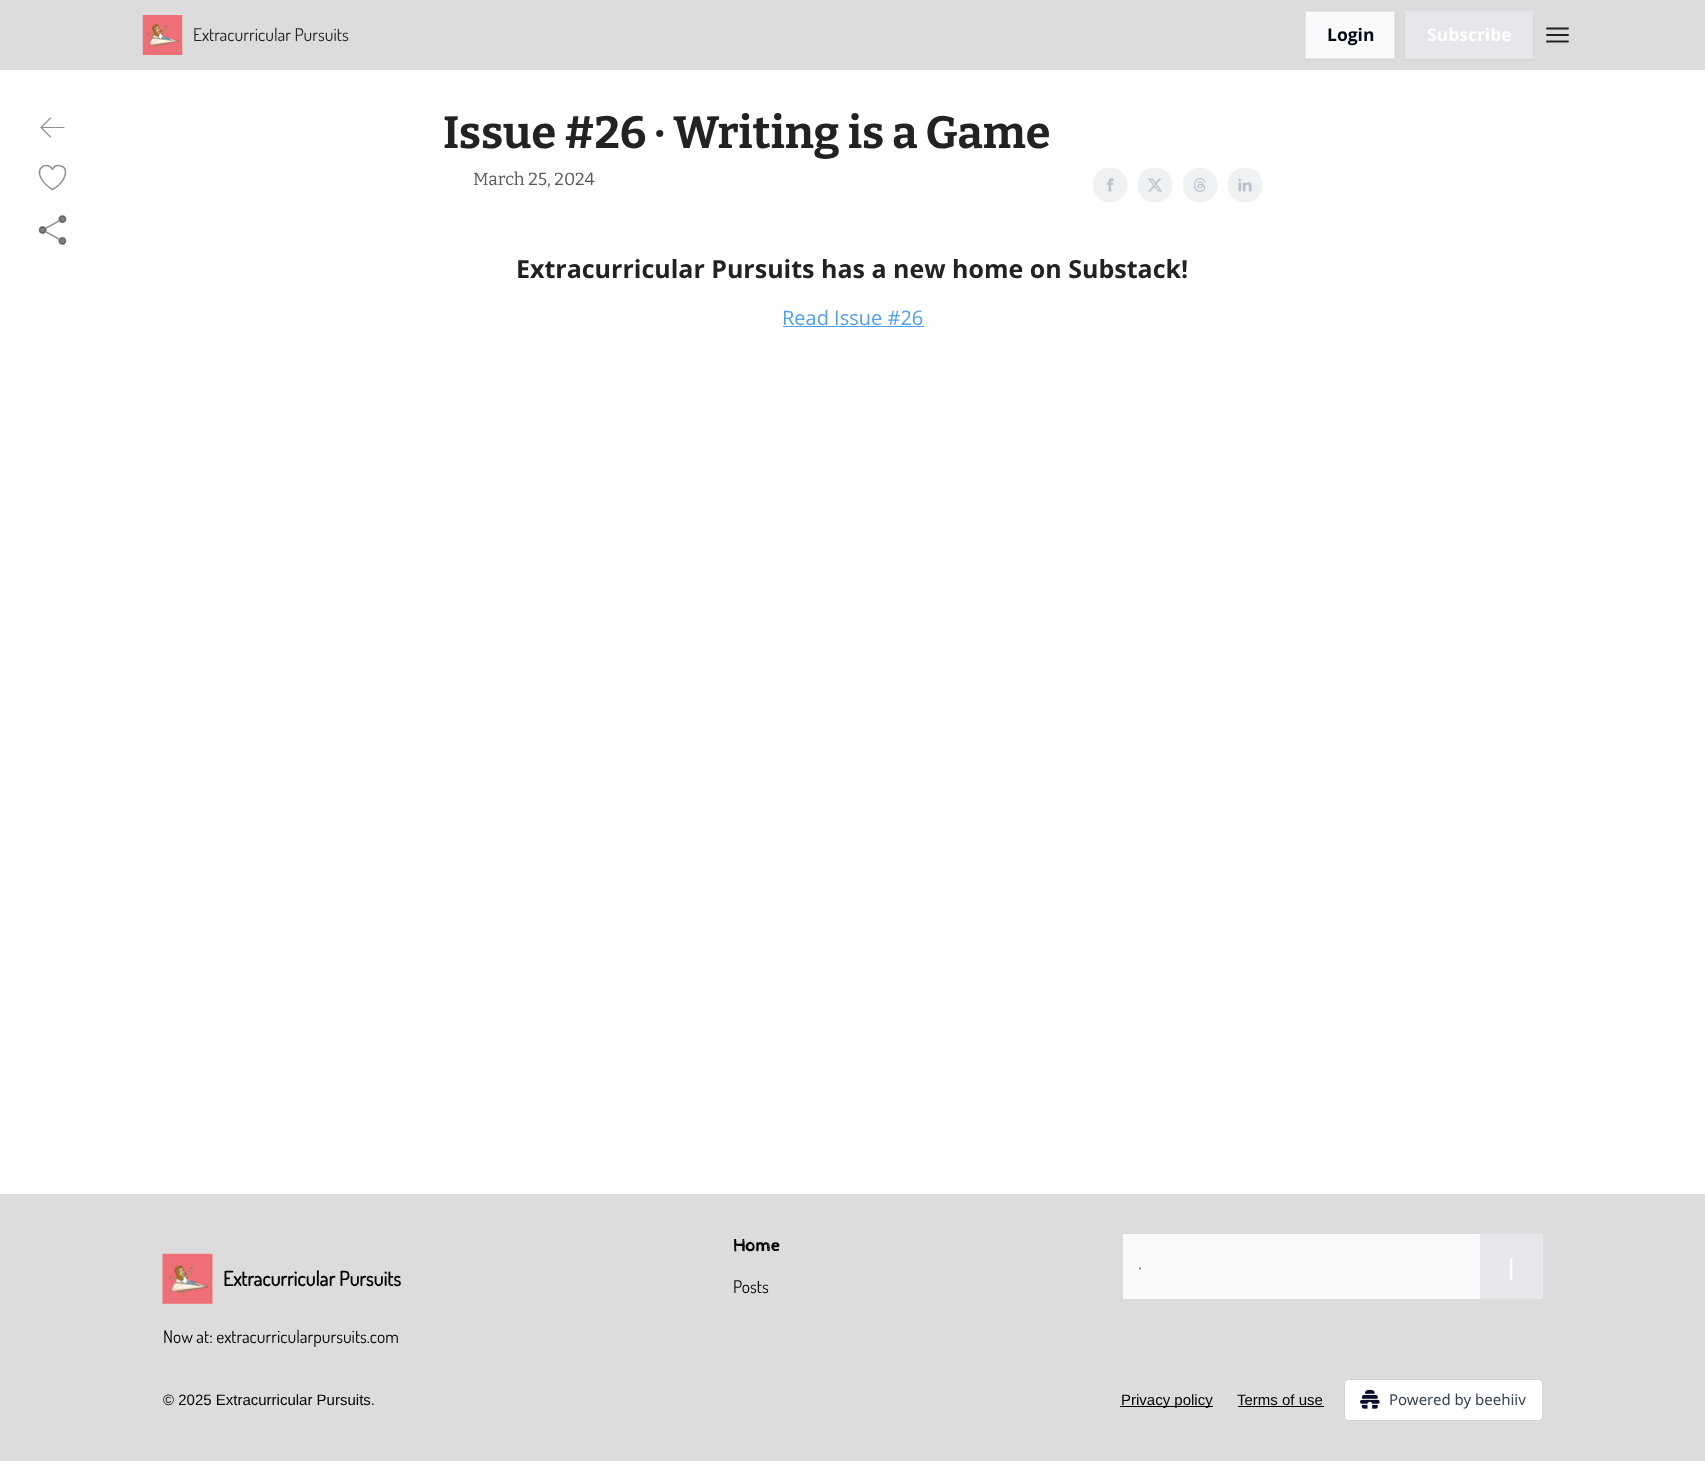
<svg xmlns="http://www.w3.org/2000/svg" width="1705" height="1461">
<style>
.a{font:17.5px Dosis;fill:#222}
.b{font:bold 17.5px Open Sans;fill:#030712}
.c{font:bold 17.5px Open Sans;fill:#fff}
.d{font:bold 45px Bitter;fill:#222}
.e{font:17.5px Bitter;fill:#595959}
.f{font:bold 25px Open Sans;fill:#222}
.g{font:20px Open Sans;fill:#529fe8}
.h{font:bold 20px Dosis;fill:#000}
.i{font:17.5px Dosis;fill:#000}
.j{font:bold 17.5px Cabin Sketch;fill:#000}
.k{font:22px Dosis;fill:#6b7280}
.l{font:bold 22px Open Sans;fill:#fff}
.m{font:15px Liberation Sans;fill:#000}
.n{font:15px Noto Sans;fill:#374151}
</style>
<rect width="100%" height="100%" fill="#fff"/>
<path fill="#dddcdc" d="M0 0h1705v70H0z"/>
<image href="1.png" x="142" y="15" width="41" height="40"/>
<path fill="#0000000d" filter="blur(1px)" d="M1305 13h90v47H1305z"/>
<path fill="#f9fafb" stroke="#e5e7eb" d="M1305.5 11.5h89v47H1305.5z"/>
<path fill="#0000000d" filter="blur(1px)" d="M1405 13h128v47H1405z"/>
<path fill="#e5e7eb" d="M1405 11h128v48H1405z"/>
<path fill="none" stroke="#222" stroke-width="1.9" stroke-linecap="round" stroke-linejoin="round" d="M1547 28.5h21m-21 6.5h21m-21 6.5h21"/>
<path fill="none" stroke="#919191" stroke-width="1.2" stroke-linecap="round" stroke-linejoin="round" d="M50.5 137l-9.5-9.5m0 0l9.5-9.5m-9.5 9.5h23"/>
<path fill="none" stroke="#919191" stroke-width="1.5" stroke-linecap="round" stroke-linejoin="round" d="M65.5 172c0-7-10-9-13-2.5c-3.5-8-18.5-3.5-11 9.5c2.5 4.5 6.5 8 11 10.5c0 0 13-7 13-17.5z"/>
<image href="2.png" x="38" y="215" width="29" height="30"/>
<image href="3.png" x="1093" y="168" width="35" height="35"/>
<image href="4.png" x="1138" y="168" width="35" height="35"/>
<image href="5.png" x="1183" y="168" width="35" height="35"/>
<image href="6.png" x="1228" y="168" width="35" height="35"/>
<path fill="#529fe8" d="M783 326h141v1H783z"/>
<path fill="#dddcdc" d="M0 1194h1705v267H0z"/>
<image href="7.png" x="162" y="1253" width="51" height="51"/>
<path fill="#f9fafb" d="M1123 1234h357v65H1123z"/>
<path fill="#e5e7eb" d="M1480 1234h63v65H1480z"/>
<path fill="#000" d="M1120 1406h93v1H1120z"/>
<path fill="#000" d="M1238 1406h86v1H1238z"/>
<rect fill="#fff" stroke="#d1d5db" x="1344.5" y="1379.5" width="198" height="41" rx="4.5"/>
<image href="8.png" x="1360" y="1390" width="20" height="19"/>
<text class="a" x="193" y="41">Extracurricular Pursuits</text>
<text class="b" x="1327" y="41">Login</text>
<text class="c" x="1427" y="41">Subscribe</text>
<text class="d" x="443" y="148">Issue #26 · Writing is a Game</text>
<text class="e" x="473" y="185">March 25, 2024</text>
<text class="f" x="516" y="278">Extracurricular Pursuits has a new home on Substack!</text>
<text class="g" x="782" y="325">Read Issue #26</text>
<text class="h" x="223" y="1286">Extracurricular Pursuits</text>
<text class="i" x="163" y="1343">Now at: extracurricularpursuits.com</text>
<text class="j" x="733" y="1251">Home</text>
<text class="i" x="733" y="1293">Posts</text>
<text class="k" x="1138" y="1275">·</text>
<text class="l" x="1505" y="1275">|</text>
<text class="m" x="163" y="1405">© 2025 Extracurricular Pursuits.</text>
<text class="m" x="1121" y="1405">Privacy policy</text>
<text class="m" x="1237" y="1405">Terms of use</text>
<text class="n" x="1389" y="1405">Powered by beehiiv</text>
</svg>
